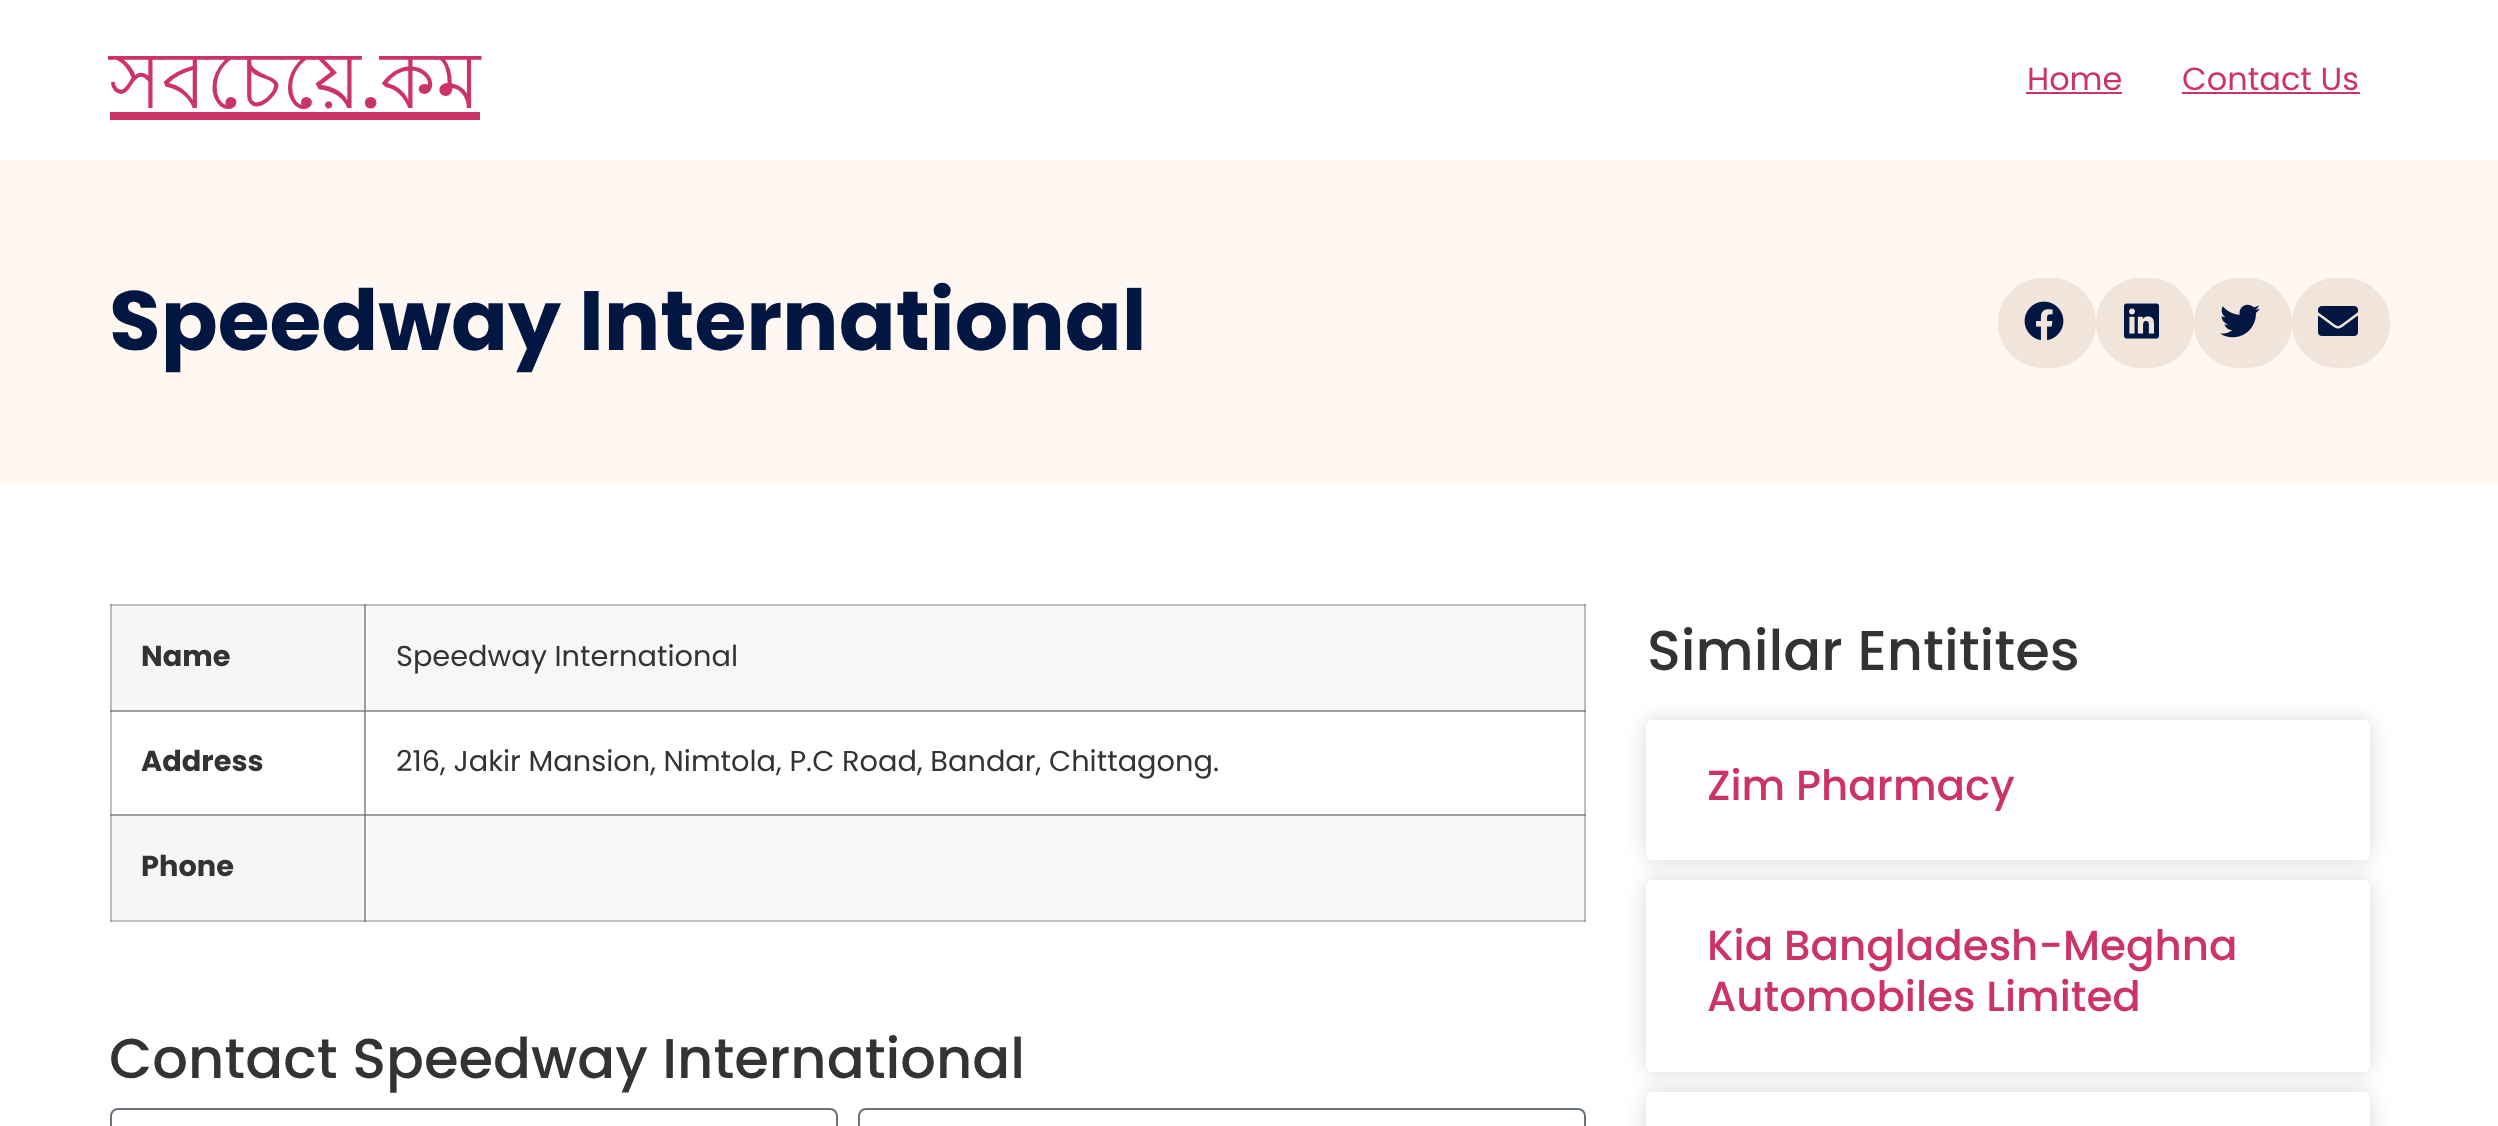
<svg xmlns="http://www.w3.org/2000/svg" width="2498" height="1126">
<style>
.a{font:80px Lohit Bengali;fill:#c36}
.b{font:500 80px Poppins;fill:#c36}
.c{font:32px Poppins;fill:#c36}
.d{font:bold 84px Poppins;fill:#011640}
.e{font:bold 28.8px Poppins;fill:#333}
.f{font:28.8px Poppins;fill:#333}
.g{font:500 56px Poppins;fill:#333}
.h{font:500 42px Poppins;fill:#c36}
</style>
<rect width="100%" height="100%" fill="#fff"/>
<path fill="#c0c0c0" d="M110 604h1476v2H110z"/>
<path fill="#a0a0a0" d="M110 604h2v2H110z"/>
<path fill="#c0c0c0" d="M110 710h2v106H110z"/>
<path fill="#a0a0a0" d="M110 710h256v2H110z"/>
<path fill="#888" d="M110 710h2v2H110z"/>
<path fill="#a0a0a0" d="M364 710h2v106H364z"/>
<path fill="#c0c0c0" d="M1584 710h2v106H1584z"/>
<path fill="#c0c0c0" d="M110 920h1476v2H110z"/>
<path fill="#a0a0a0" d="M110 920h2v2H110z"/>
<path fill="#a0a0a0" d="M110 814h1476v2H110z"/>
<path fill="#888" d="M110 814h2v2H110z"/>
<path fill="#888" d="M364 920h2v2H364z"/>
<path fill="#a0a0a0" d="M1584 920h2v2H1584z"/>
<path fill="#c36" d="M110 112h370v8H110z"/>
<path fill="#c36" d="M2026 92h96v2H2026z"/>
<path fill="#c36" d="M2182 92h178v2H2182z"/>
<path fill="#fff7f1" d="M0 160h2498v324H0z"/>
<rect fill="none" stroke="#f1e4db" stroke-width="6" x="2001" y="281" width="92" height="84" rx="42"/>
<rect fill="#f1e4db" x="2004" y="284" width="86" height="78" rx="39"/>
<image href="1.png" x="2024" y="301" width="40" height="40"/>
<rect fill="none" stroke="#f1e4db" stroke-width="6" x="2099" y="281" width="92" height="84" rx="42"/>
<rect fill="#f1e4db" x="2102" y="284" width="86" height="78" rx="39"/>
<image href="2.png" x="2124" y="303" width="35" height="36"/>
<rect fill="none" stroke="#f1e4db" stroke-width="6" x="2197" y="281" width="92" height="84" rx="42"/>
<rect fill="#f1e4db" x="2200" y="284" width="86" height="78" rx="39"/>
<image href="3.png" x="2220" y="304" width="40" height="34"/>
<rect fill="none" stroke="#f1e4db" stroke-width="6" x="2295" y="281" width="92" height="84" rx="42"/>
<rect fill="#f1e4db" x="2298" y="284" width="86" height="78" rx="39"/>
<image href="4.png" x="2318" y="306" width="40" height="30"/>
<path fill="#f6f6f6" d="M112 606h252v104H112z"/>
<path fill="#bbb" d="M110 606h2v104H110z"/>
<path fill="#f7f7f7" d="M366 606h1218v104H366z"/>
<path fill="#9e9e9e" d="M364 606h2v104H364z"/>
<path fill="#bcbcbc" d="M1584 606h2v104H1584z"/>
<path fill="#888" d="M364 604h2v2H364z"/>
<path fill="#a0a0a0" d="M1584 604h2v2H1584z"/>
<path fill="#a0a0a0" d="M364 710h1222v2H364z"/>
<path fill="#818181" d="M364 710h2v2H364z"/>
<path fill="#888" d="M1584 710h2v2H1584z"/>
<path fill="#f6f6f6" d="M112 816h252v104H112z"/>
<path fill="#bbb" d="M110 816h2v104H110z"/>
<path fill="#f7f7f7" d="M366 816h1218v104H366z"/>
<path fill="#9e9e9e" d="M364 816h2v104H364z"/>
<path fill="#bcbcbc" d="M1584 816h2v104H1584z"/>
<path fill="#818181" d="M364 814h2v2H364z"/>
<path fill="#888" d="M1584 814h2v2H1584z"/>
<rect fill="none" stroke="#69727d" stroke-width="2" x="111" y="1109" width="726" height="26" rx="7"/>
<rect fill="none" stroke="#69727d" stroke-width="2" x="859" y="1109" width="726" height="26" rx="7"/>
<rect fill="#00000026" filter="blur(10px)" x="1646" y="720" width="724" height="140" rx="6"/>
<rect fill="#fff" x="1646" y="720" width="724" height="140" rx="6"/>
<rect fill="#00000026" filter="blur(10px)" x="1646" y="880" width="724" height="192" rx="6"/>
<rect fill="#fff" x="1646" y="880" width="724" height="192" rx="6"/>
<rect fill="#00000026" filter="blur(10px)" x="1646" y="1092" width="724" height="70" rx="6"/>
<rect fill="#fff" x="1646" y="1092" width="724" height="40" rx="6"/>
<text class="a" x="109" y="108">সবচেয়ে</text>
<text class="b" x="361" y="108">.</text>
<text class="a" x="380" y="108">কম</text>
<text class="c" x="2027" y="90">Home</text>
<text class="c" x="2182" y="90">Contact Us</text>
<text class="d" x="109" y="350">Speedway International</text>
<text class="e" x="141" y="666">Name</text>
<text class="f" x="396" y="666">Speedway International</text>
<text class="e" x="141" y="771">Address</text>
<text class="f" x="396" y="771">216, Jakir Mansion, Nimtola, P.C Road, Bandar, Chittagong.</text>
<text class="e" x="141" y="876">Phone</text>
<text class="g" x="109" y="1078">Contact Speedway International</text>
<text class="g" x="1647" y="670">Similar Entitites</text>
<text class="h" x="1707" y="800">Zim Pharmacy</text>
<text class="h" x="1707" y="960">Kia Bangladesh-Meghna</text>
<text class="h" x="1707" y="1011">Automobiles Limited</text>
</svg>
